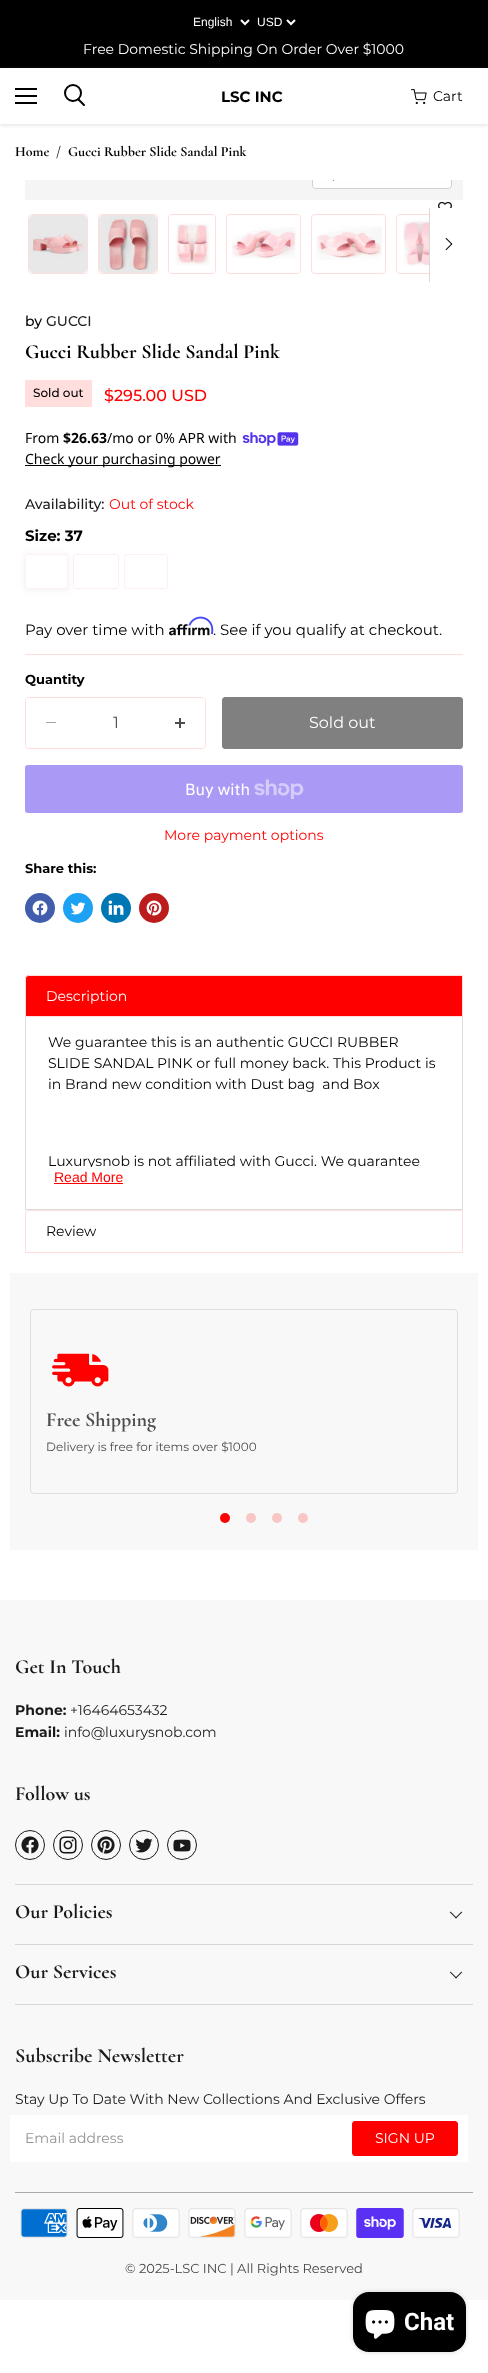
<svg xmlns="http://www.w3.org/2000/svg" width="488" height="2373">
<style>
.a{font:12px Liberation Sans;fill:#fff}
.b{font:14px Montserrat;fill:#fff}
.c{font:bold 15px Montserrat;fill:#000}
.d{font:14px Montserrat;fill:#000}
.e{font:bold 14px Cormorant;fill:#000}
.f{font:500 14px Montserrat;fill:#000}
.g{font:500 14px Montserrat;fill:#212121}
.h{font:bold 20px Cormorant;fill:#000}
.i{font:500 12px Montserrat;fill:#000}
.j{font:500 16px Montserrat;fill:#f00}
.k{font:14px Noto Sans;fill:#000}
.l{font:bold 14px Noto Sans;fill:#000}
.m{font:500 14px Montserrat;fill:#1a1a1a}
.n{font:14px Montserrat;fill:#f00}
.o{font:15px Montserrat;fill:#000}
.p{font:bold 13px Montserrat;fill:#000}
.q{font:16px Montserrat;fill:#4d4d4d}
.r{font:16px Montserrat;fill:#fff}
.s{font:16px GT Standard;fill:#fff}
.t{font:14px Liberation Sans;fill:#f00}
.u{font:bold 20px Cormorant;fill:#4d4d4d}
.v{font:12px Montserrat;fill:#4d4d4d}
.w{font:bold 20px Cormorant;fill:#1a1a1a}
.x{font:bold 14px Montserrat;fill:#1a1a1a}
.y{font:14px Montserrat;fill:#1a1a1a}
.z{font:14px Montserrat;fill:#949494}
.a1{font:13px Montserrat;fill:#464646}
.b1{font:bold 24px Roboto;fill:#fff}
</style>
<defs>
<clipPath id="clip1"><path d="M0 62h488v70h-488zm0 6h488v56h-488z" clip-rule="evenodd"/></clipPath>
<clipPath id="clip2"><path d="M25 180h438v20H25z"/></clipPath>
<clipPath id="clip3"><path d="M48 1017h392v150H48z"/></clipPath>
</defs>
<rect width="100%" height="100%" fill="#fff"/>
<path fill="#000" d="M0 0h488v68H0z"/>
<path fill="none" stroke="#fff" stroke-width="2" d="M241 20l4 4l4-4"/>
<path fill="none" stroke="#fff" stroke-width="2" d="M287 20l4 4l4-4"/>
<g clip-path="url(#clip1)">
<path fill="#80808040" filter="blur(2px)" d="M0 69h488v56H0z"/>
</g>
<path fill="#000" d="M15 88h22v2H15z"/>
<path fill="#000" d="M15 95h22v2H15z"/>
<path fill="#000" d="M15 102h22v2H15z"/>
<path fill="none" stroke="#000" stroke-width="2" stroke-linecap="round" d="M84 105l-5.5-5.5"/>
<circle fill="none" stroke="#000" stroke-width="2" cx="73" cy="93" r="8"/>
<image href="1.png" x="411" y="89" width="16" height="16"/>
<path fill="#f5f5f5" d="M25 180h438v20H25z"/>
<g clip-path="url(#clip2)">
<rect fill="none" stroke="#d0d0d0" x="312.5" y="159.5" width="139" height="29" rx="3.5"/>
</g>
<path fill="#ffffffe6" d="M313 180h138v5c0 1.5-1.5 3-3 3h-132c-1.5 0-3-1.5-3-3z"/>
<image href="2.png" x="333" y="180" width="1" height="1"/>
<image href="3.png" x="438" y="201" width="14" height="7"/>
<rect fill="none" stroke="#ffdedd" x="396.5" y="214.5" width="47" height="59" rx="3.5"/>
<path fill="#fff" d="M430 214h14v60H430z"/>
<path fill="#d9d9d9" d="M429 208h1v74H429z"/>
<image href="4.png" x="445" y="238" width="8" height="13"/>
<rect fill="none" stroke="#ffdedd" x="28.5" y="214.5" width="59" height="59" rx="3.5"/>
<image href="5.png" x="29" y="215" width="58" height="58"/>
<rect fill="none" stroke="#ffdedd" x="98.5" y="214.5" width="59" height="59" rx="3.5"/>
<image href="6.png" x="99" y="215" width="58" height="58"/>
<rect fill="none" stroke="#ffdedd" x="168.5" y="214.5" width="47" height="59" rx="3.5"/>
<image href="7.png" x="175" y="223" width="35" height="43"/>
<rect fill="none" stroke="#ffdedd" x="226.5" y="214.5" width="74" height="59" rx="3.5"/>
<image href="8.png" x="232" y="227" width="64" height="32"/>
<rect fill="none" stroke="#ffdedd" x="311.5" y="214.5" width="74" height="59" rx="3.5"/>
<image href="9.png" x="312" y="226" width="70" height="34"/>
<image href="10.png" x="403" y="220" width="26" height="47"/>
<path fill="#ffdedd" d="M25 380h67v27H25z"/>
<image href="11.png" x="242" y="432" width="57" height="14"/>
<path fill="#000" d="M25 465h196v1H25z"/>
<rect fill="#b1b1b133" filter="blur(3.5px)" x="25" y="555" width="43" height="35" rx="3"/>
<rect fill="none" stroke="#ffefee" x="25.5" y="554.5" width="42" height="34" rx="2.5"/>
<path fill="#fff" d="M28 555c-1 0-2 1-2 2v29c0 1 1 2 2 2h37c1 0 2-1 2-2v-29c0-1-1-2-2-2z"/>
<rect fill="none" stroke="#fee" x="73.5" y="554.5" width="45" height="34" rx="2.5"/>
<path fill="#fff" d="M76 555c-3 0-2 6-2 7v19c0 1-1 7 2 7h41l1-2c0-2 0-30-1-30l-1-1z"/>
<rect fill="none" stroke="#ffefee" x="124.5" y="554.5" width="43" height="34" rx="2.5"/>
<path fill="#fff" d="M127 555l-1 1c-1 0-1 28-1 30l1 2h39c3 0 2-6 2-7v-19c0-1 1-7-2-7z"/>
<image href="13.png" x="169" y="624" width="41" height="12"/>
<path fill="#ffdedd" d="M25 654h438v1H25z"/>
<rect fill="none" stroke="#ffdedd" x="25.5" y="697.5" width="180" height="51" rx="3.5"/>
<path fill="#fff" d="M29 698h47v50h-47c-1.5 0-3-1.5-3-3v-44c0-1.5 1.5-3 3-3z"/>
<path fill="#a6a6a6" d="M46 722h10v1H46z"/>
<path fill="#fff" d="M155 698h47c1.5 0 3 1.5 3 3v44c0 1.5-1.5 3-3 3h-47z"/>
<image href="14.png" x="175" y="718" width="10" height="10"/>
<rect fill="#808080" stroke="#808080" x="222.5" y="697.5" width="240" height="51" rx="2.5"/>
<rect fill="#aa99f5" x="25" y="765" width="438" height="48" rx="3"/>
<image href="15.png" x="254" y="779" width="50" height="20"/>
<circle fill="#425dab" cx="40" cy="908" r="15"/>
<image href="16.png" x="32" y="900" width="16" height="16"/>
<circle fill="#1da1f2" cx="78" cy="908" r="15"/>
<image href="17.png" x="70" y="902" width="16" height="13"/>
<circle fill="#0077b5" cx="116" cy="908" r="15"/>
<image href="18.png" x="108" y="900" width="16" height="15"/>
<circle fill="#bd1c1c" cx="154" cy="908" r="15"/>
<image href="19.png" x="146" y="900" width="16" height="16"/>
<path fill="#f00" d="M29 975h434v41h-438v-37c0-2 2-4 4-4z"/>
<path fill="#ffdedd" fill-rule="evenodd" d="M29 975h434v41h-438v-37c0-2 2-4 4-4zm0 1h433v40h-436v-37c0-2 1-3 3-3z"/>
<path fill="#ffdedd" d="M25 1016h438v1H25z"/>
<path fill="#ddd" d="M462 1016h1v194H462z"/>
<path fill="#ddd" d="M25 1209h438v1H25z"/>
<path fill="#ddd" d="M25 1016h1v194H25z"/>
<path fill="#f00" d="M54 1183h69v1H54z"/>
<path fill="none" stroke="#ffdedd" d="M29 1210.5h433.5v42h-437v-38.5c0-2 1.5-3.5 3.5-3.5z"/>
<path fill="#f8f8f8" d="M10 1273h468v277H10z"/>
<rect fill="none" stroke="#dedede" x="30.5" y="1309.5" width="427" height="184" rx="3.5"/>
<image href="20.png" x="52" y="1353" width="57" height="34"/>
<circle fill="#f00" cx="225" cy="1518" r="5"/>
<circle fill="#f9c6c6" cx="251" cy="1518" r="5"/>
<circle fill="#f9c6c6" cx="277" cy="1518" r="5"/>
<circle fill="#f9c6c6" cx="303" cy="1518" r="5"/>
<path fill="#f8f8f8" d="M0 1600h488v700H0z"/>
<path fill="#d7d7d7" d="M15 1884h458v1H15z"/>
<circle fill="none" stroke="#1a1a1a" cx="30" cy="1845" r="14.5"/>
<image href="21.png" x="21" y="1836" width="18" height="18"/>
<circle fill="none" stroke="#1a1a1a" cx="68" cy="1845" r="14.5"/>
<image href="22.png" x="59" y="1836" width="18" height="18"/>
<circle fill="none" stroke="#1a1a1a" cx="106" cy="1845" r="14.5"/>
<image href="23.png" x="97" y="1836" width="18" height="18"/>
<circle fill="none" stroke="#1a1a1a" cx="144" cy="1845" r="14.5"/>
<image href="24.png" x="135" y="1838" width="18" height="15"/>
<circle fill="none" stroke="#1a1a1a" cx="182" cy="1845" r="14.5"/>
<image href="25.png" x="173" y="1839" width="18" height="13"/>
<path fill="#d7d7d7" d="M15 1944h458v1H15z"/>
<image href="26.png" x="449" y="1911" width="14" height="8"/>
<path fill="#d7d7d7" d="M15 2004h458v1H15z"/>
<image href="26.png" x="449" y="1971" width="14" height="8"/>
<path fill="#fff" d="M10 2115h458v47H10z"/>
<rect fill="#f00" stroke="#f00" x="352.5" y="2121.5" width="105" height="34" rx="2.5"/>
<path fill="#aaa" d="M15 2192h458v1H15z"/>
<image href="27.png" x="20" y="2208" width="48" height="30"/>
<image href="28.png" x="76" y="2208" width="48" height="30"/>
<image href="29.png" x="132" y="2208" width="48" height="30"/>
<image href="30.png" x="188" y="2208" width="48" height="30"/>
<image href="31.png" x="244" y="2208" width="48" height="30"/>
<image href="32.png" x="300" y="2208" width="48" height="30"/>
<image href="33.png" x="356" y="2208" width="48" height="30"/>
<image href="34.png" x="412" y="2208" width="48" height="30"/>
<rect fill="#00000026" filter="blur(2.5px)" x="353" y="2292" width="113" height="60" rx="16"/>
<rect fill="#000" x="353" y="2292" width="113" height="60" rx="16"/>
<image href="35.png" x="365" y="2310" width="30" height="29"/>
<text class="a" x="193" y="26">English</text>
<text class="a" x="257" y="26">USD</text>
<text class="b" x="83" y="54">Free Domestic Shipping On Order Over $1000</text>
<text class="c" x="221" y="102">LSC INC</text>
<text class="d" x="433" y="101">Cart</text>
<text class="e" x="15" y="156">Home</text>
<text class="e" x="56" y="156">/</text>
<text class="e" x="68" y="156">Gucci Rubber Slide Sandal Pink</text>
<text class="f" x="25" y="326">by</text>
<text class="g" x="46" y="326">GUCCI</text>
<text class="h" x="25" y="358">Gucci Rubber Slide Sandal Pink</text>
<text class="i" x="33" y="397">Sold out</text>
<text class="j" x="104" y="401">$295.00 USD</text>
<text class="k" x="25" y="443">From</text>
<text class="l" x="63" y="443">$26.63</text>
<text class="k" x="107" y="443">/mo or 0% APR with</text>
<text class="k" x="25" y="464">Check your purchasing power</text>
<text class="m" x="25" y="509">Availability:</text>
<text class="n" x="109" y="509">Out of stock</text>
<text class="c" x="25" y="541">Size: 37</text>
<text class="o" x="25" y="635">Pay over time with</text>
<text class="o" x="213" y="635">. See if you qualify at checkout.</text>
<image href="12.png" x="188" y="616" width="26" height="19"/>
<text class="p" x="25" y="684">Quantity</text>
<text class="q" x="113" y="728">1</text>
<text class="r" x="309" y="728">Sold out</text>
<text class="s" x="185" y="795">Buy with</text>
<text class="n" x="164" y="840">More payment options</text>
<text class="p" x="25" y="873">Share this:</text>
<text class="b" x="46" y="1001">Description</text>
<text class="d" x="48" y="1047">We guarantee this is an authentic GUCCI RUBBER</text>
<text class="d" x="48" y="1068">SLIDE SANDAL PINK or full money back. This Product is</text>
<text class="d" xml:space="preserve" x="48" y="1089">in Brand new condition with Dust bag  and Box</text>
<g clip-path="url(#clip3)">
<text class="d" x="48" y="1166">Luxurysnob is not affiliated with Gucci. We guarantee</text>
</g>
<text class="t" x="54" y="1182">Read More</text>
<text class="d" x="46" y="1236">Review</text>
<text class="u" x="46" y="1426">Free Shipping</text>
<text class="v" x="46" y="1451">Delivery is free for items over $1000</text>
<text class="w" x="15" y="1673">Get In Touch</text>
<text class="x" x="15" y="1715">Phone:</text>
<text class="y" x="70" y="1715">+16464653432</text>
<text class="x" x="15" y="1737">Email:</text>
<text class="y" x="64" y="1737">info@luxurysnob.com</text>
<text class="w" x="15" y="1800">Follow us</text>
<text class="w" x="15" y="1918">Our Policies</text>
<text class="w" x="15" y="1978">Our Services</text>
<text class="w" x="15" y="2062">Subscribe Newsletter</text>
<text class="y" x="15" y="2104">Stay Up To Date With New Collections And Exclusive Offers</text>
<text class="z" x="25" y="2143">Email address</text>
<text class="b" x="375" y="2143">SIGN UP</text>
<text class="a1" x="125" y="2273">© 2025-LSC INC | All Rights Reserved</text>
<text class="b1" x="404" y="2330">Chat</text>
</svg>
